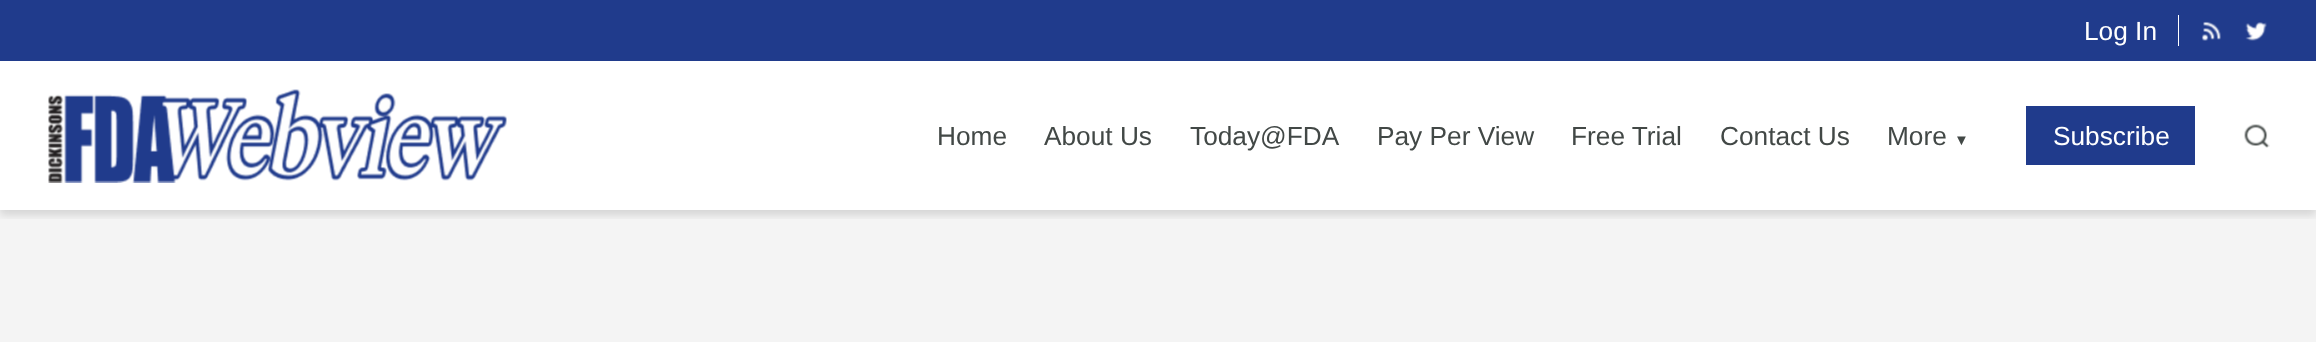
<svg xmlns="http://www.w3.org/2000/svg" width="2316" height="342">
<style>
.a{font:26.25px Liberation Sans;fill:#fff}
.b{font:26.25px Liberation Sans;fill:#424846}
.c{font:15px Liberation Sans;fill:#424846}
</style>
<defs>
<clipPath id="clip1"><path d="M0 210h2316v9H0z"/></clipPath>
</defs>
<rect width="100%" height="100%" fill="#fff"/>
<path fill="#f4f4f4" d="M0 210h2316v132H0z"/>
<g clip-path="url(#clip1)">
<path fill="#00000021" filter="blur(4px)" d="M0 5h2316v210H0z"/>
</g>
<path fill="#203b8c" d="M0 0h2316v61H0z"/>
<path fill="#fff" d="M2178 15h1v31H2178z"/>
<image href="1.png" x="2201" y="21" width="20" height="20"/>
<image href="2.png" x="2245" y="22" width="22" height="19"/>
<image href="3.png" x="48" y="89" width="459" height="94"/>
<path fill="#203b8c" d="M2026 106h169v59H2026z"/>
<image href="4.png" x="2244" y="124" width="26" height="24"/>
<text class="a" x="2084" y="40">Log In</text>
<text class="b" x="937" y="145">Home</text>
<text class="b" x="1044" y="145">About Us</text>
<text class="b" x="1190" y="145">Today@FDA</text>
<text class="b" x="1377" y="145">Pay Per View</text>
<text class="b" x="1571" y="145">Free Trial</text>
<text class="b" x="1720" y="145">Contact Us</text>
<text class="b" x="1887" y="145">More</text>
<text class="c" x="1954" y="145">▼</text>
<text class="a" x="2053" y="145">Subscribe</text>
</svg>
